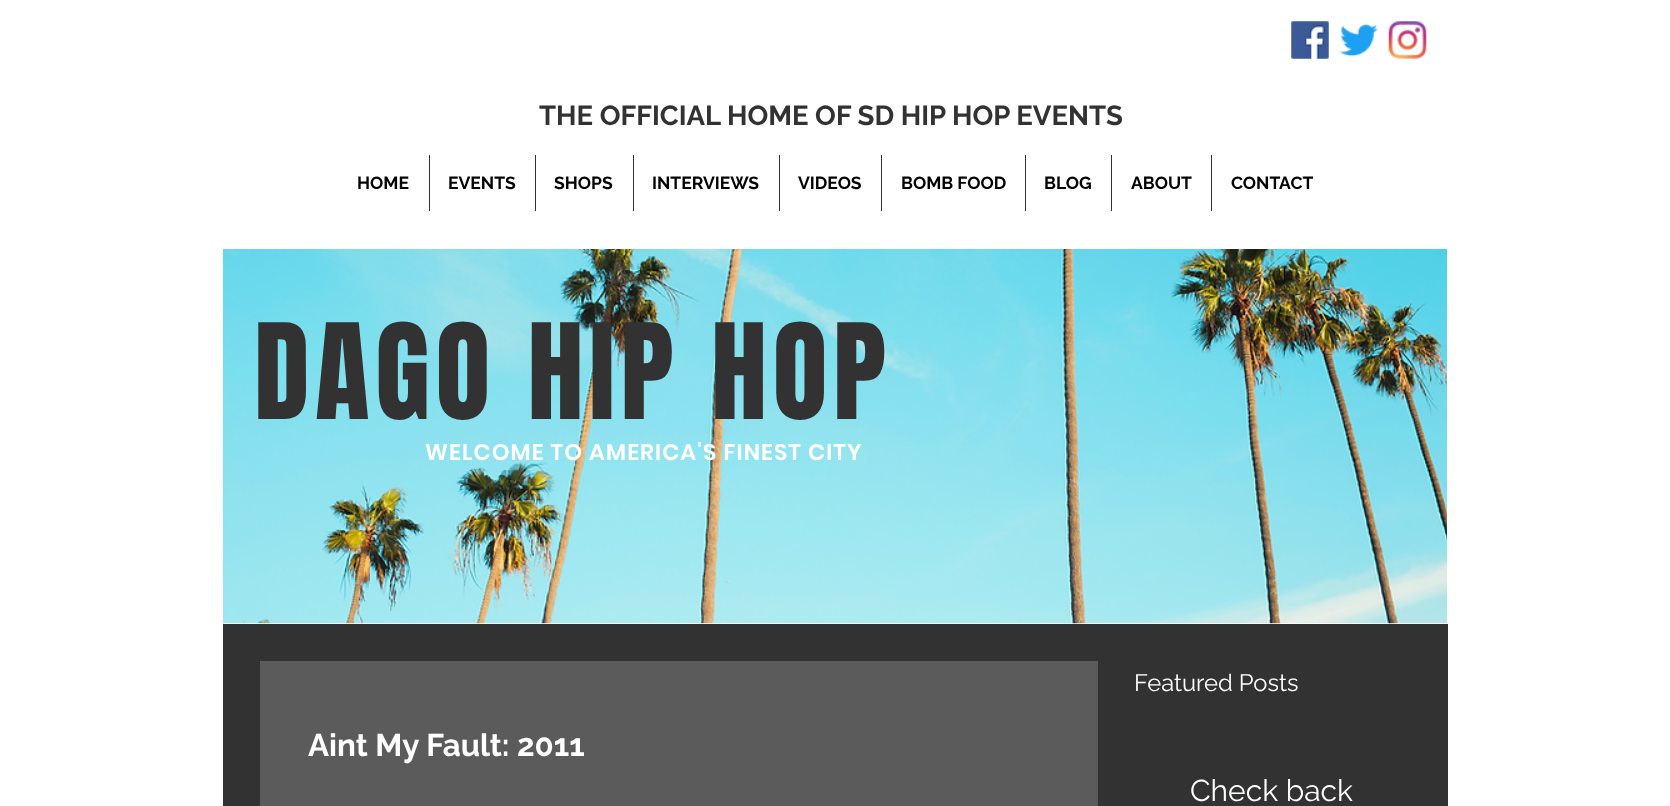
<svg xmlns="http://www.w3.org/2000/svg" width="1670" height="806">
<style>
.a{font:bold 27.5px Raleway;fill:#323232}
.b{font:bold 17.5px Raleway;fill:#000}
.c{font:112.5px Anton;letter-spacing:5.6px;fill:#323232}
.d{font:600 22.5px Poppins;letter-spacing:1.1px;fill:#fff}
.e{font:23.75px Raleway;fill:#fff}
.f{font:bold 31.25px Raleway;fill:#fff}
.g{font:30px Raleway;fill:#fff}
</style>
<rect width="100%" height="100%" fill="#fff"/>
<image href="1.png" x="1291" y="21" width="38" height="38"/>
<image href="2.png" x="1340" y="23" width="38" height="34"/>
<image href="3.png" x="1388" y="21" width="39" height="38"/>
<path fill="#323232" d="M429 155h1v56H429z"/>
<path fill="#323232" d="M535 155h1v56H535z"/>
<path fill="#323232" d="M633 155h1v56H633z"/>
<path fill="#323232" d="M779 155h1v56H779z"/>
<path fill="#323232" d="M881 155h1v56H881z"/>
<path fill="#323232" d="M1025 155h1v56H1025z"/>
<path fill="#323232" d="M1111 155h1v56H1111z"/>
<path fill="#323232" d="M1211 155h1v56H1211z"/>
<image href="4.png" x="223" y="249" width="1225" height="375"/>
<path fill="#323232" d="M223 624h1225v182H223z"/>
<path fill="#5b5b5b" d="M260 661h838v145H260z"/>
<text class="a" x="539" y="125">THE OFFICIAL HOME OF SD HIP HOP EVENTS</text>
<text class="b" x="357" y="189">HOME</text>
<text class="b" x="448" y="189">EVENTS</text>
<text class="b" x="554" y="189">SHOPS</text>
<text class="b" x="652" y="189">INTERVIEWS</text>
<text class="b" x="798" y="189">VIDEOS</text>
<text class="b" x="901" y="189">BOMB FOOD</text>
<text class="b" x="1044" y="189">BLOG</text>
<text class="b" x="1131" y="189">ABOUT</text>
<text class="b" x="1231" y="189">CONTACT</text>
<text class="c" x="254" y="419">DAGO HIP HOP</text>
<text class="d" x="425" y="460">WELCOME TO AMERICA'S FINEST CITY</text>
<text class="e" x="1134" y="691">Featured Posts</text>
<text class="f" x="308" y="756">Aint My Fault: 2011</text>
<text class="g" x="1190" y="801">Check back</text>
</svg>
